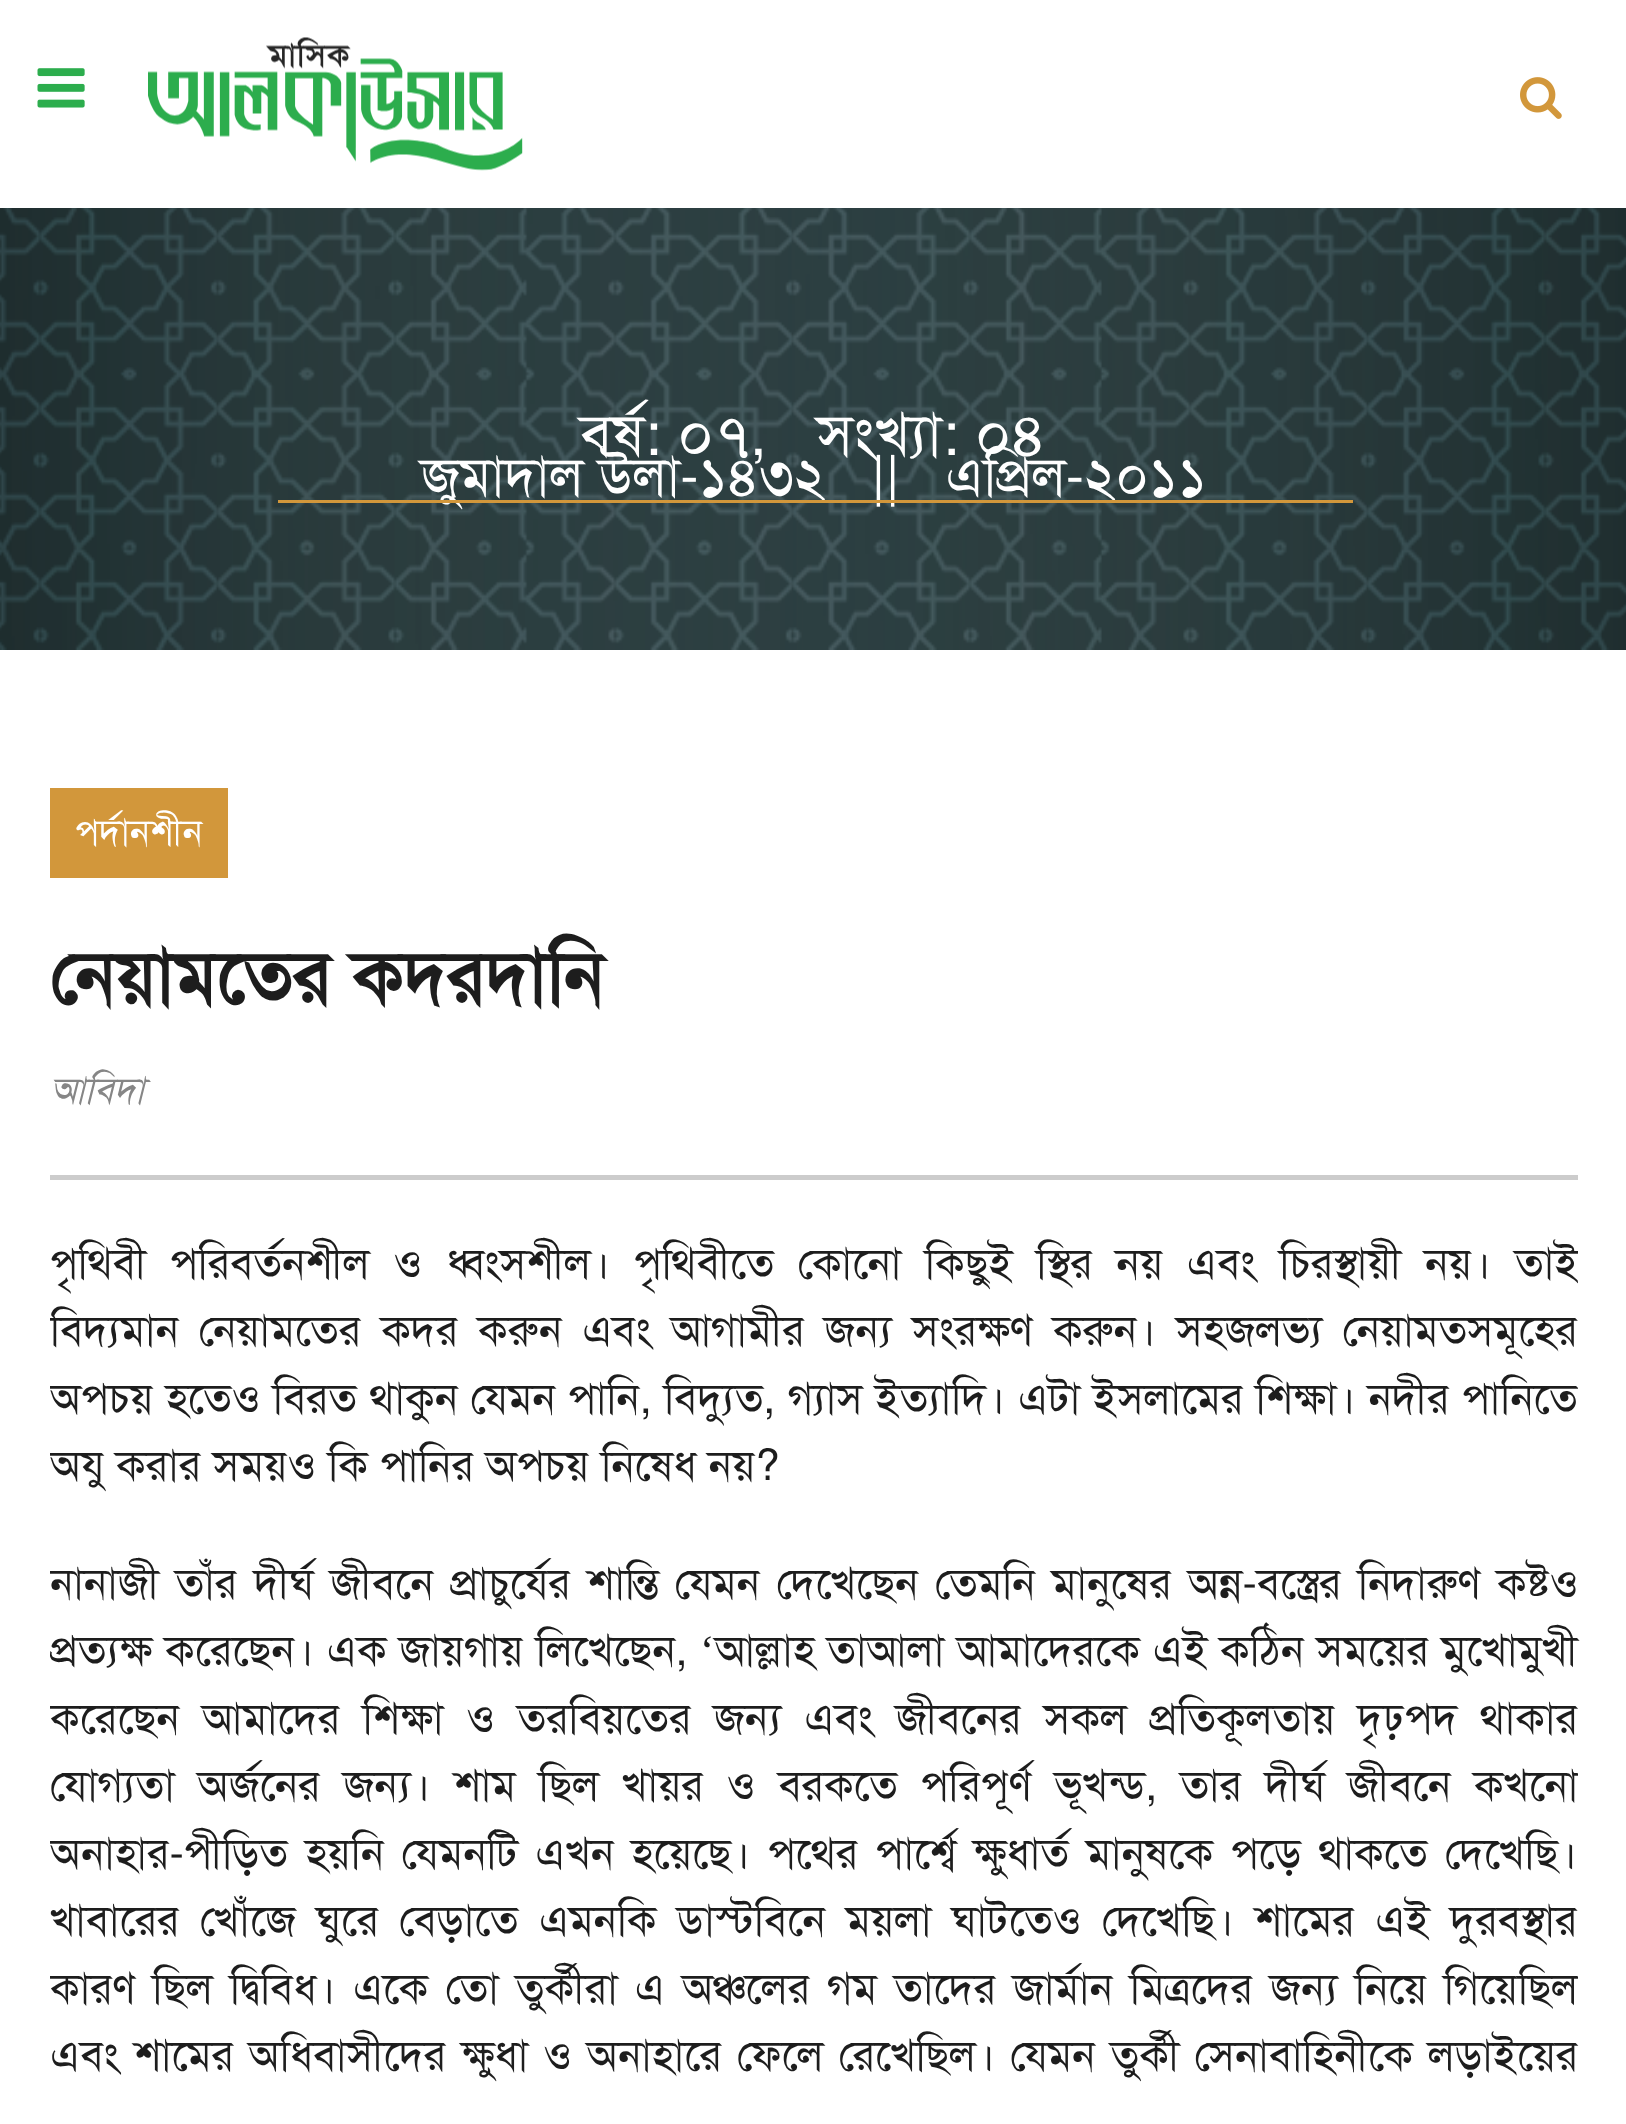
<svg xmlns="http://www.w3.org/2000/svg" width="1626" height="2124">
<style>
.a{font:60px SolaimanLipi;fill:#fff}
.b{font:55px SolaimanLipi;fill:#fff}
.c{font:37.5px SolaimanLipi;fill:#fff}
.d{font:bold 75px SolaimanLipi;fill:#1d1d1d}
.e{font:italic 37.5px SolaimanLipi;fill:#868686}
.f{font:43.35px SolaimanLipi;fill:#1d1d1d}
.g{font:43.35px Liberation Serif;fill:#1d1d1d}
</style>
<defs>
<clipPath id="clip1"><path d="M50 775h1528v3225H50z"/></clipPath>
</defs>
<rect width="100%" height="100%" fill="#fff"/>
<image href="1.png" x="37" y="68" width="48" height="40"/>
<image href="2.png" x="148" y="37" width="375" height="134"/>
<image href="3.png" x="1520" y="77" width="42" height="42"/>
<image href="4.png" x="0" y="208" width="1626" height="442"/>
<path fill="#ccc" d="M50 1175h1528v5H50z"/>
<path fill="#d2973b" d="M50 788h178v90H50z"/>
<text class="a" xml:space="preserve" x="580" y="455">বর্ষ: ০৭,   সংখ্যা: ০৪</text>
<text class="b" xml:space="preserve" x="421" y="495">জুমাদাল উলা-১৪৩২   ||   এপ্রিল-২০১১</text>
<path fill="#d2973b" d="M278 500h1075v3H278z"/>
<text class="c" x="75" y="845">পর্দানশীন</text>
<g clip-path="url(#clip1)">
<text class="d" x="50" y="1003">নেয়ামতের কদরদানি</text>
</g>
<text class="e" x="50" y="1103">আবিদা</text>
<g clip-path="url(#clip1)">
<text class="f" x="50" y="1278" word-spacing="11.75">পৃথিবী পরিবর্তনশীল ও ধ্বংসশীল। পৃথিবীতে কোনো কিছুই স্থির নয় এবং চিরস্থায়ী নয়। তাই</text>
<text class="f" x="50" y="1345" word-spacing="8">বিদ্যমান নেয়ামতের কদর করুন এবং আগামীর জন্য সংরক্ষণ করুন। সহজলভ্য নেয়ামতসমূহের</text>
<text class="f" x="50" y="1413" word-spacing="0.5">অপচয় হতেও বিরত থাকুন যেমন পানি, বিদ্যুত, গ্যাস ইত্যাদি। এটা ইসলামের শিক্ষা। নদীর পানিতে</text>
<text class="f" x="50" y="1480">অযু করার সময়ও কি পানির অপচয় নিষেধ নয়?</text>
<text class="f" x="50" y="1598" word-spacing="4.6">নানাজী তাঁর দীর্ঘ জীবনে প্রাচুর্যের শান্তি যেমন দেখেছেন তেমনি মানুষের অন্ন-বস্ত্রের নিদারুণ কষ্টও</text>
</g>
<text class="f" x="50" y="1665" word-spacing="0.75">প্রত্যক্ষ করেছেন। এক জায়গায় লিখেছেন,</text>
<text class="g" x="700" y="1665">‘</text>
<text class="f" x="715" y="1665" word-spacing="0.75">আল্লাহ তাআলা আমাদেরকে এই কঠিন সময়ের মুখোমুখী</text>
<g clip-path="url(#clip1)">
<text class="f" x="50" y="1733" word-spacing="10.6">করেছেন আমাদের শিক্ষা ও তরবিয়তের জন্য এবং জীবনের সকল প্রতিকূলতায় দৃঢ়পদ থাকার</text>
<text class="f" x="50" y="1800" word-spacing="11">যোগ্যতা অর্জনের জন্য। শাম ছিল খায়র ও বরকতে পরিপূর্ণ ভূখন্ড, তার দীর্ঘ জীবনে কখনো</text>
<text class="f" x="50" y="1868" word-spacing="5.4">অনাহার-পীড়িত হয়নি যেমনটি এখন হয়েছে। পথের পার্শ্বে ক্ষুধার্ত মানুষকে পড়ে থাকতে দেখেছি।</text>
<text class="f" x="50" y="1935" word-spacing="8.5">খাবারের খোঁজে ঘুরে বেড়াতে এমনকি ডাস্টবিনে ময়লা ঘাটতেও দেখেছি। শামের এই দুরবস্থার</text>
<text class="f" x="50" y="2003" word-spacing="5.1">কারণ ছিল দ্বিবিধ। একে তো তুর্কীরা এ অঞ্চলের গম তাদের জার্মান মিত্রদের জন্য নিয়ে গিয়েছিল</text>
</g>
<text class="f" x="50" y="2070" word-spacing="3">এবং শামের অধিবাসীদের ক্ষুধা ও অনাহারে ফেলে রেখেছিল। যেমন তুর্কী সেনাবাহিনীকে লড়াইয়ের</text>
</svg>
